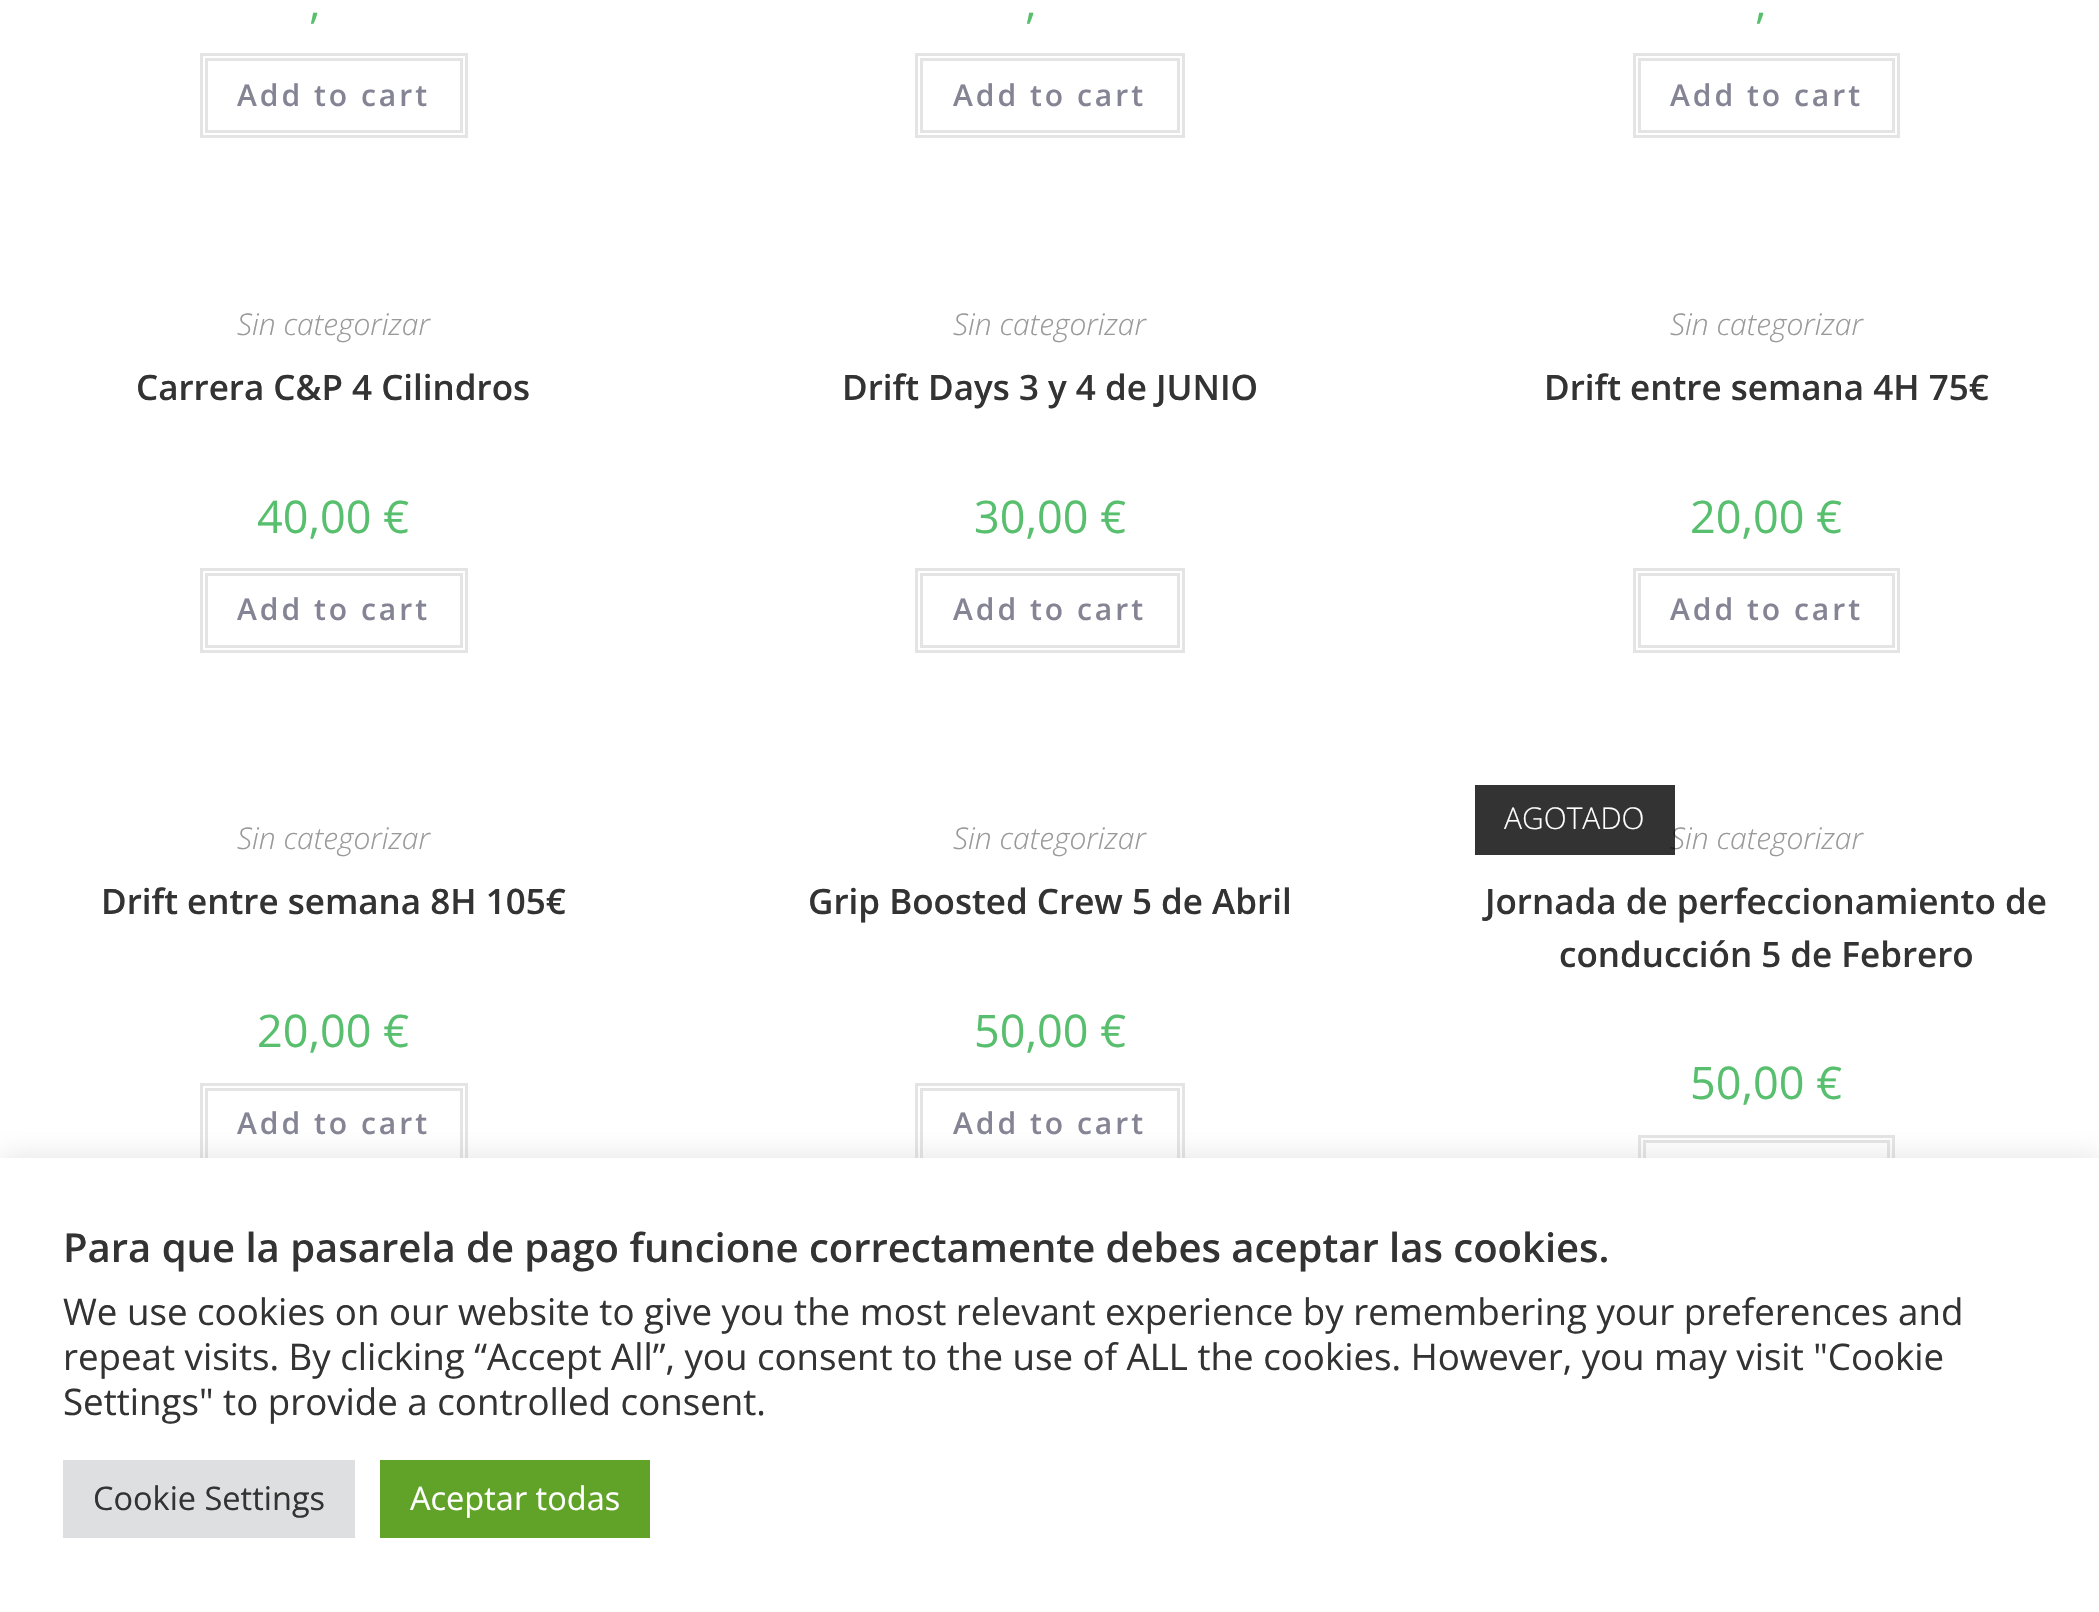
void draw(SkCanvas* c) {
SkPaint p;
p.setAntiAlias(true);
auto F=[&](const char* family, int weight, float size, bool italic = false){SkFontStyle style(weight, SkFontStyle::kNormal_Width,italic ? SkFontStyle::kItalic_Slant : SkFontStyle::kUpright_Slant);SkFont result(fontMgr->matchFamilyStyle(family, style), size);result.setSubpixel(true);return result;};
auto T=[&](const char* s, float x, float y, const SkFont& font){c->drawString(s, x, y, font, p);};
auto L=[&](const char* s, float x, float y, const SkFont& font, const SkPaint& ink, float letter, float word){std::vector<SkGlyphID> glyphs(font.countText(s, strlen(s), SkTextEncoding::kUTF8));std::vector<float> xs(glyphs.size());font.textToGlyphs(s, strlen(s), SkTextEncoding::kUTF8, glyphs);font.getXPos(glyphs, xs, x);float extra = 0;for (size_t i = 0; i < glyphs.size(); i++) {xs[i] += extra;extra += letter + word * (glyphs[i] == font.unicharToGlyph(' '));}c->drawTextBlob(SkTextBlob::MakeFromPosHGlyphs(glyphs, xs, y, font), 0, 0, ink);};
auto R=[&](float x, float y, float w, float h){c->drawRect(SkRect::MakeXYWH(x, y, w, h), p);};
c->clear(0xffffffff);
auto f1 = F("Open Sans",400,45);
p.setColor(0xff57bf6d);
T(",",309,18,f1);
p.setStroke(true);
p.setStrokeWidth(3);
p.setColor(0xffe4e4e4);
c->drawRect(SkRect::MakeXYWH(201.5,54.5,265,82),p);
c->drawRect(SkRect::MakeXYWH(206.5,59.5,255,72),p);
auto f2 = F("Open Sans",600,30);
p.setStroke(false);
p.setColor(0xff848494);
L("Add to cart",237,106,f2,p,3,0);
p.setColor(0xff57bf6d);
T(",",1025,18,f1);
p.setStroke(true);
p.setColor(0xffe4e4e4);
c->drawRect(SkRect::MakeXYWH(916.5,54.5,267,82),p);
c->drawRect(SkRect::MakeXYWH(921.5,59.5,257,72),p);
p.setStroke(false);
p.setColor(0xff848494);
L("Add to cart",953,106,f2,p,3,0);
p.setColor(0xff57bf6d);
T(",",1755,18,f1);
p.setStroke(true);
p.setColor(0xffe4e4e4);
c->drawRect(SkRect::MakeXYWH(1634.5,54.5,264,82),p);
c->drawRect(SkRect::MakeXYWH(1639.5,59.5,254,72),p);
p.setStroke(false);
p.setColor(0xff848494);
L("Add to cart",1670,106,f2,p,3,0);
auto f3 = F("Open Sans",300,30,true);
p.setColor(0xff999999);
T("Sin categorizar",237,335,f3);
auto f4 = F("Open Sans",600,35);
p.setColor(0xff333333);
T("Carrera C&P 4 Cilindros",136,400,f4);
p.setColor(0xff57bf6d);
T("40,00 €",257,533,f1);
p.setStroke(true);
p.setColor(0xffe4e4e4);
c->drawRect(SkRect::MakeXYWH(201.5,569.5,265,82),p);
c->drawRect(SkRect::MakeXYWH(206.5,574.5,255,72),p);
p.setStroke(false);
p.setColor(0xff848494);
L("Add to cart",237,620,f2,p,3,0);
p.setColor(0xff999999);
T("Sin categorizar",953,335,f3);
p.setColor(0xff333333);
T("Drift Days 3 y 4 de JUNIO",842,400,f4);
p.setColor(0xff57bf6d);
T("30,00 €",974,533,f1);
p.setStroke(true);
p.setColor(0xffe4e4e4);
c->drawRect(SkRect::MakeXYWH(916.5,569.5,267,82),p);
c->drawRect(SkRect::MakeXYWH(921.5,574.5,257,72),p);
p.setStroke(false);
p.setColor(0xff848494);
L("Add to cart",953,620,f2,p,3,0);
p.setColor(0xff999999);
T("Sin categorizar",1670,335,f3);
p.setColor(0xff333333);
T("Drift entre semana 4H 75€",1544,400,f4);
p.setColor(0xff57bf6d);
T("20,00 €",1690,533,f1);
p.setStroke(true);
p.setColor(0xffe4e4e4);
c->drawRect(SkRect::MakeXYWH(1634.5,569.5,264,82),p);
c->drawRect(SkRect::MakeXYWH(1639.5,574.5,254,72),p);
p.setStroke(false);
p.setColor(0xff848494);
L("Add to cart",1670,620,f2,p,3,0);
p.setColor(0xff999999);
T("Sin categorizar",237,849,f3);
p.setColor(0xff333333);
T("Drift entre semana 8H 105€",101,914,f4);
p.setColor(0xff57bf6d);
T("20,00 €",257,1047,f1);
p.setStroke(true);
p.setColor(0xffe4e4e4);
c->drawRect(SkRect::MakeXYWH(201.5,1084.5,265,82),p);
c->drawRect(SkRect::MakeXYWH(206.5,1089.5,255,72),p);
p.setStroke(false);
p.setColor(0xff848494);
L("Add to cart",237,1134,f2,p,3,0);
p.setColor(0xff999999);
T("Sin categorizar",953,849,f3);
p.setColor(0xff333333);
T("Grip Boosted Crew 5 de Abril",808,914,f4);
p.setColor(0xff57bf6d);
T("50,00 €",974,1047,f1);
p.setStroke(true);
p.setColor(0xffe4e4e4);
c->drawRect(SkRect::MakeXYWH(916.5,1084.5,267,82),p);
c->drawRect(SkRect::MakeXYWH(921.5,1089.5,257,72),p);
p.setStroke(false);
p.setColor(0xff848494);
L("Add to cart",953,1134,f2,p,3,0);
p.setColor(0xff999999);
T("Sin categorizar",1670,849,f3);
p.setColor(0xcc000000);
R(1475,785,200,70);
auto f5 = F("Open Sans",300,30);
p.setColor(0xffffffff);
T("AGOTADO",1504,829,f5);
p.setColor(0xff333333);
T("Jornada de perfeccionamiento de",1485,914,f4);
T("conducción 5 de Febrero",1559,967,f4);
p.setColor(0xff57bf6d);
T("50,00 €",1690,1099,f1);
p.setStroke(true);
p.setColor(0xffe4e4e4);
c->drawRect(SkRect::MakeXYWH(1639.5,1136.5,254,82),p);
c->drawRect(SkRect::MakeXYWH(1644.5,1141.5,244,72),p);
p.setStroke(false);
p.setColor(0x4dacabab);
p.setMaskFilter(SkMaskFilter::MakeBlur(kNormal_SkBlurStyle, 12.5));
c->drawRect(SkRect::MakeXYWH(0,1155,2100,455),p);
p.setMaskFilter(nullptr);
p.setColor(0xffffffff);
R(0,1158,2099,454);
auto f6 = F("Open Sans",600,40);
p.setColor(0xff333333);
T("Para que la pasarela de pago funcione correctamente debes aceptar las cookies.",63,1262,f6);
auto f7 = F("Open Sans",400,36.67);
T("We use cookies on our website to give you the most relevant experience by remembering your preferences and",63,1325,f7);
T("repeat visits. By clicking “Accept All”, you consent to the use of ALL the cookies. However, you may visit \"Cookie",63,1370,f7);
T("Settings\" to provide a controlled consent.",63,1415,f7);
p.setColor(0xffdedfe0);
R(63,1460,292,78);
auto f8 = F("Open Sans",400,32.5);
p.setColor(0xff333333);
T("Cookie Settings",93,1510,f8);
p.setColor(0xff61a229);
R(380,1460,270,78);
p.setColor(0xffffffff);
T("Aceptar todas",410,1510,f8);
}
